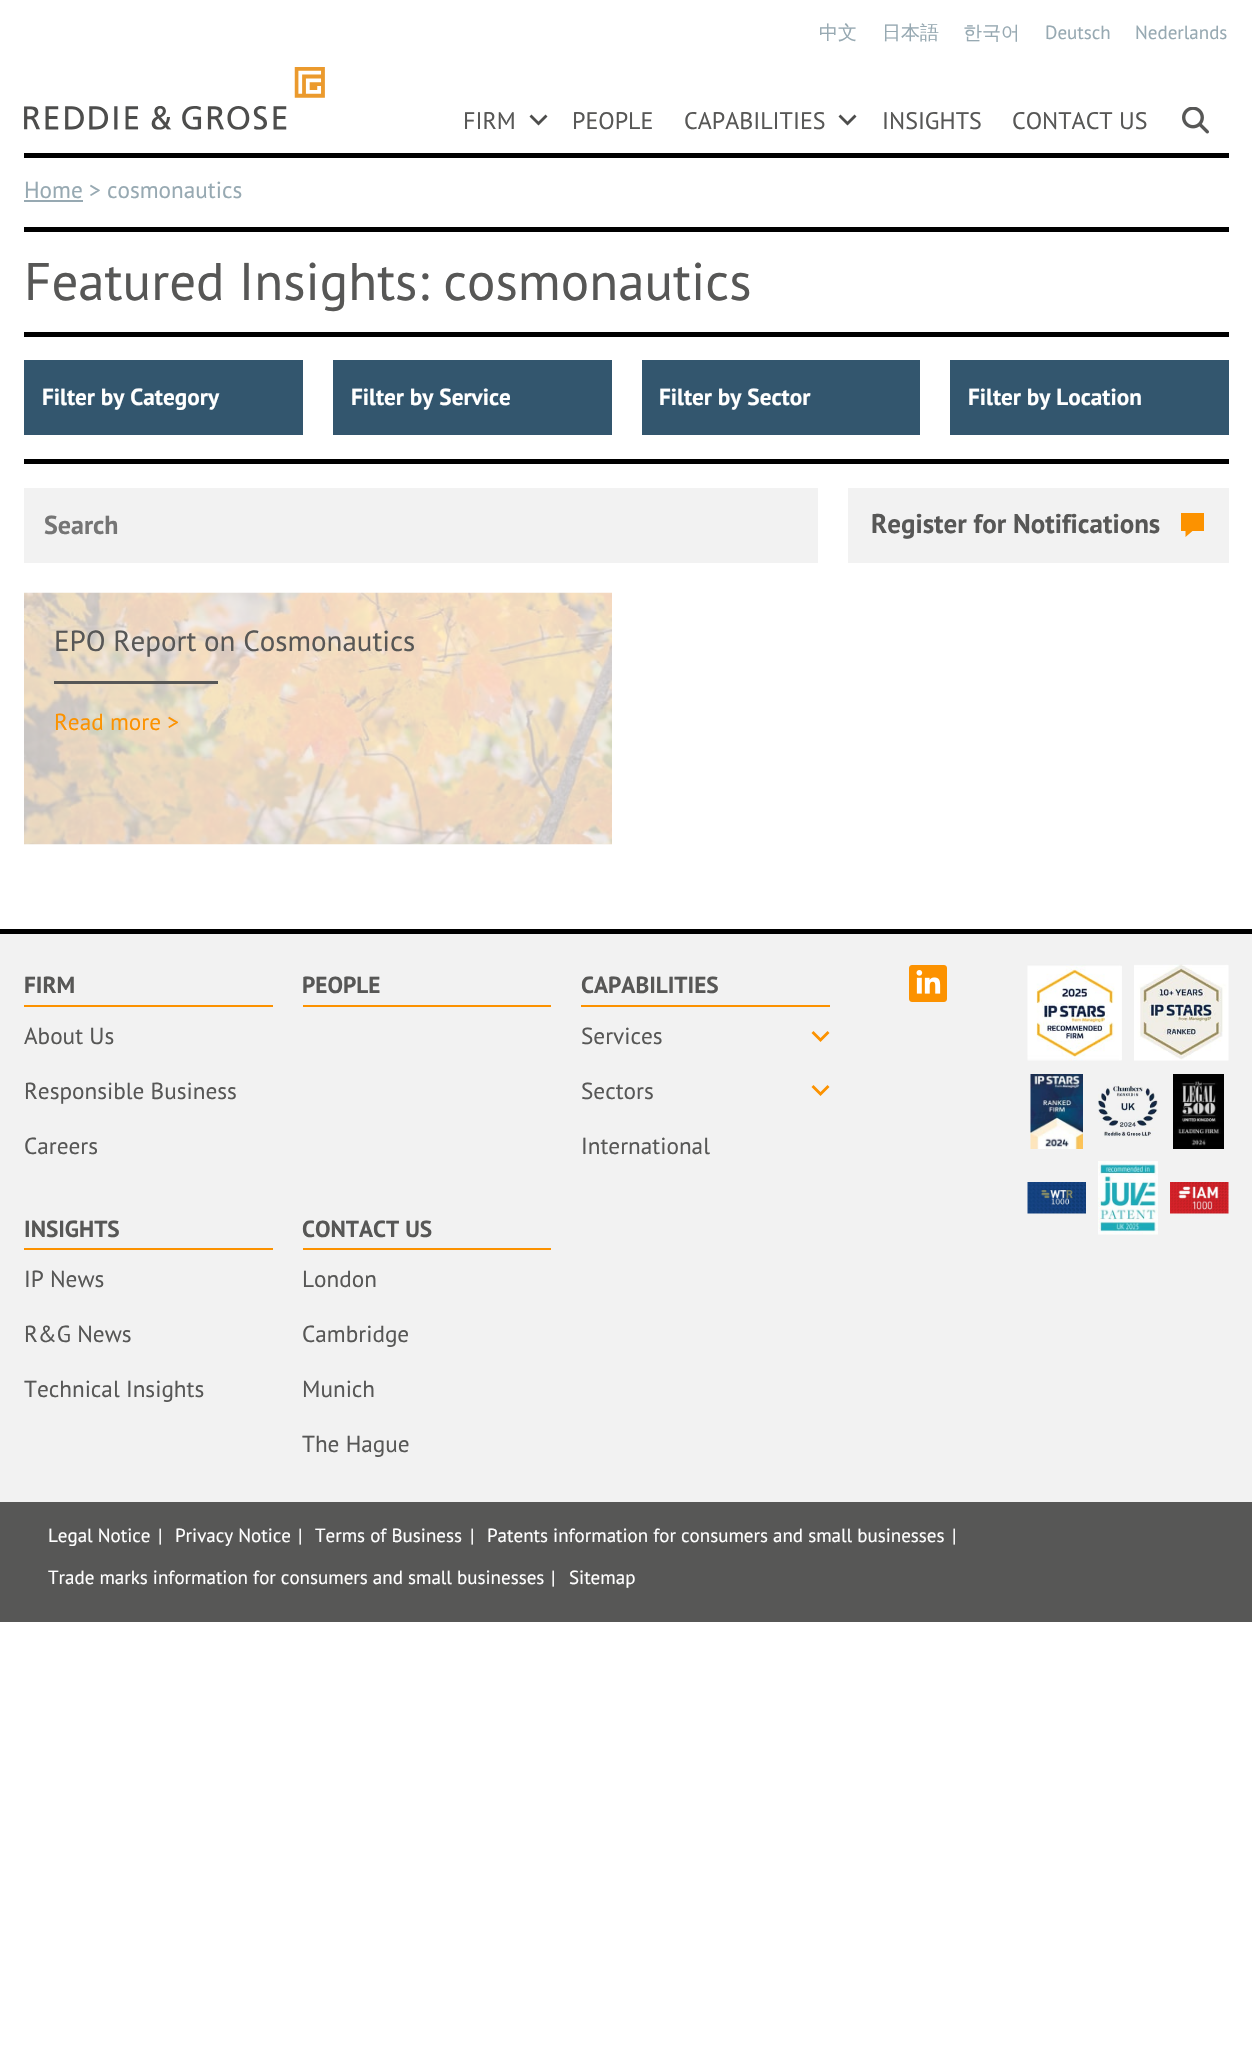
void draw(SkCanvas* c) {
SkPaint p;
p.setAntiAlias(true);
auto F=[&](const char* family, int weight, float size, bool italic = false){SkFontStyle style(weight, SkFontStyle::kNormal_Width,italic ? SkFontStyle::kItalic_Slant : SkFontStyle::kUpright_Slant);SkFont result(fontMgr->matchFamilyStyle(family, style), size);result.setSubpixel(true);return result;};
auto T=[&](const char* s, float x, float y, const SkFont& font){c->drawString(s, x, y, font, p);};
auto R=[&](float x, float y, float w, float h){c->drawRect(SkRect::MakeXYWH(x, y, w, h), p);};
auto I=[&](const char* path, float x, float y, float w, float h){auto image = SkImages::DeferredFromEncodedData(SkData::MakeFromFileName(path));c->drawImageRect(image, SkRect::MakeXYWH(x, y, w, h), SkSamplingOptions());};
auto P=[&](const char* data, bool evenOdd = false){SkPath result = *SkParsePath::FromSVGString(data);if (evenOdd) result.setFillType(SkPathFillType::kEvenOdd);return result;};
c->clear(0xffffffff);
I("1.png",24,67,301,63);
auto f1 = F("WenQuanYi Zen Hei",500,19);
p.setColor(0xff97a9b2);
T("中文",819,39,f1);
T("日本語",882,39,f1);
T("한국어",963,39,f1);
auto f2 = F("PT Sans",400,19);
T("Deutsch",1045,39,f2);
T("Nederlands",1135,39,f2);
auto f3 = F("PT Sans",400,24);
p.setColor(0xff575756);
T("FIRM",463,129,f3);
p.setColor(0xff4d4d4c);
c->drawPath(P("M545.5 114.5l-7 7l-7-7l-2 2l9 9l9-9z"),p);
p.setColor(0xff575756);
T("PEOPLE",572,129,f3);
T("CAPABILITIES",684,129,f3);
p.setColor(0xff4d4d4c);
c->drawPath(P("M854.5 114.5l-7 7l-7-7l-2 2l9 9l9-9z"),p);
p.setColor(0xff575756);
T("INSIGHTS",882,129,f3);
T("CONTACT US",1012,129,f3);
I("2.png",1182,107,27,27);
p.setColor(0xff000000);
R(24,153,1205,5);
R(24,227,1205,5);
auto f4 = F("PT Sans",400,23.25);
p.setColor(0xff97a9b2);
T("Home > cosmonautics",24,198,f4);
R(24,200,59,2);
p.setColor(0xff000000);
R(24,332,1205,5);
auto f5 = F("PT Sans",400,53);
p.setColor(0xff575756);
T("Featured Insights: cosmonautics",24,300,f5);
p.setColor(0xff000000);
R(24,459,1205,5);
p.setColor(0xff33566e);
R(24,360,279,75);
auto f6 = F("PT Sans",700,23.25);
p.setColor(0xffffffff);
T("Filter by Category",42,405,f6);
p.setColor(0xff33566e);
R(333,360,279,75);
p.setColor(0xffffffff);
T("Filter by Service",351,405,f6);
p.setColor(0xff33566e);
R(642,360,278,75);
p.setColor(0xffffffff);
T("Filter by Sector",659,405,f6);
p.setColor(0xff33566e);
R(950,360,279,75);
p.setColor(0xffffffff);
T("Filter by Location",968,405,f6);
p.setColor(0xfff2f2f2);
R(24,488,794,75);
auto f7 = F("PT Sans",700,26);
p.setColor(0xff757575);
T("Search",44,534,f7);
p.setColor(0xfff2f2f2);
R(848,488,381,75);
auto f8 = F("PT Sans",700,27);
p.setColor(0xff575756);
T("Register for Notifications",871,533,f8);
p.setColor(0xfffc9200);
c->drawPath(P("M1181 513h23v18h-11.5l-7 6v-6h-4.5z",true),p);
I("3.png",24,592,588,253);
auto f9 = F("PT Sans",400,29);
p.setColor(0xff575756);
T("EPO Report on Cosmonautics",54,651,f9);
R(54,681,164,3);
p.setColor(0xfffc9200);
T("Read more >",54,730,f4);
p.setColor(0xfff2f2f2);
R(0,934,1252,568);
p.setColor(0xff000000);
R(0,929,1252,5);
p.setColor(0xfffc9200);
R(24,1005,249,2);
p.setColor(0xff575756);
T("FIRM",24,993,f6);
T("About Us",24,1044,f4);
T("Responsible Business",24,1099,f4);
T("Careers",24,1154,f4);
p.setColor(0xfffc9200);
R(303,1005,248,2);
p.setColor(0xff575756);
T("PEOPLE",302,993,f6);
p.setColor(0xfffc9200);
R(581,1005,249,2);
p.setColor(0xff575756);
T("CAPABILITIES",581,993,f6);
T("Services",581,1044,f4);
p.setColor(0xfffc9200);
c->drawPath(P("M827.5 1031l-7 7l-7-7l-2 2l9 9l9-9z"),p);
p.setColor(0xff575756);
T("Sectors",581,1099,f4);
p.setColor(0xfffc9200);
c->drawPath(P("M827.5 1085l-7 7l-7-7l-2 2l9 9l9-9z"),p);
p.setColor(0xff575756);
T("International",581,1154,f4);
p.setColor(0xfffc9200);
R(24,1248,249,2);
p.setColor(0xff575756);
T("INSIGHTS",24,1237,f6);
T("IP News",24,1287,f4);
T("R&G News",24,1342,f4);
T("Technical Insights",24,1397,f4);
p.setColor(0xfffc9200);
R(303,1248,248,2);
p.setColor(0xff575756);
T("CONTACT US",302,1237,f6);
T("London",302,1287,f4);
T("Cambridge",302,1342,f4);
T("Munich",302,1397,f4);
T("The Hague",302,1452,f4);
I("4.png",909,965,38,37);
I("5.png",1027,964,95,97);
I("6.png",1134,964,95,97);
I("7.png",1030,1074,53,75);
I("8.png",1098,1083,60,55);
I("9.png",1173,1074,51,75);
I("10.png",1027,1182,59,32);
I("11.png",1098,1161,60,74);
I("12.png",1170,1182,59,32);
R(0,1502,1252,120);
p.setColor(0xffffffff);
T("Legal Notice",48,1542,f2);
T("|",158,1542,f2);
T("Privacy Notice",175,1542,f2);
T("|",298,1542,f2);
T("Terms of Business",315,1542,f2);
T("|",470,1542,f2);
T("Patents information for consumers and small businesses",487,1542,f2);
T("|",952,1542,f2);
T("Trade marks information for consumers and small businesses",48,1584,f2);
T("|",551,1584,f2);
T("Sitemap",569,1584,f2);
}
